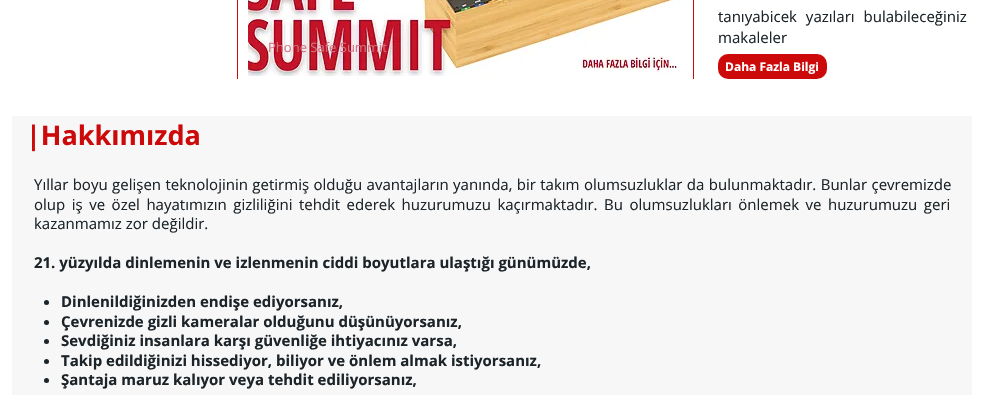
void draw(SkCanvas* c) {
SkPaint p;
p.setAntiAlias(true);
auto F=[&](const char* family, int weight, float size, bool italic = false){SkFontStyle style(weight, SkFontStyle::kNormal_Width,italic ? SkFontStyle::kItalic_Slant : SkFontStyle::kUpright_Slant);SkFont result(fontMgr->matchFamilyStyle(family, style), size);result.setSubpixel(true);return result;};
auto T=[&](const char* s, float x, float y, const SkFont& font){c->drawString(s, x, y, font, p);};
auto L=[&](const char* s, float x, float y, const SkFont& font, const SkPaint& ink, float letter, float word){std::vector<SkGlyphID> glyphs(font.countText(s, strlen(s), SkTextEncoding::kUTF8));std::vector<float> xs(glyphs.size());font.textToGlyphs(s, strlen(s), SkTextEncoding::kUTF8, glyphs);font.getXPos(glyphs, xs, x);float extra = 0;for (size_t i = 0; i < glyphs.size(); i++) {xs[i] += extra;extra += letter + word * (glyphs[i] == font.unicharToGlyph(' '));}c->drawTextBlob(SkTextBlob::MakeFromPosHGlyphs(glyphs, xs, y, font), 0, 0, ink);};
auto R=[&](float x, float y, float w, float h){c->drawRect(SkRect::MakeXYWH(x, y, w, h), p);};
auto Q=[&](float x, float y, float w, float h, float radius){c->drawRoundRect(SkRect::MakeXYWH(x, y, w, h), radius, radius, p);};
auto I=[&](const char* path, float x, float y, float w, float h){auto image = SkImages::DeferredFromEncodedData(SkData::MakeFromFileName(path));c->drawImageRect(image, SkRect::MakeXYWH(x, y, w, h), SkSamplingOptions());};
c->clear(0xffffffff);
p.setColor(0xffcc0a0a);
R(237,0,1,79);
R(693,0,1,79);
auto f1 = F("Open Sans",400,15);
p.setColor(0xff1c2429);
L("tanıyabicek yazıları bulabileceğiniz",718,22,f1,p,0,5);
T("makaleler",718,43,f1);
I("1.png",248,0,432,76);
auto f2 = F("Open Sans",400,13);
p.setColor(0xffd1727e);
T("Phone Safe Summit",268,52,f2);
p.setColor(0xffcc0a0a);
Q(718,54,109,25,10);
auto f3 = F("Open Sans",700,12);
p.setColor(0xffffffff);
T("Daha Fazla Bilgi",725,71,f3);
p.setColor(0xfff7f7f7);
R(12,116,960,279);
auto f4 = F("Open Sans",700,27);
p.setColor(0xffcc0a0a);
T("|Hakkımızda",26,145,f4);
p.setColor(0xff1c2429);
L("Yıllar boyu gelişen teknolojinin getirmiş olduğu avantajların yanında, bir takım olumsuzluklar da bulunmaktadır. Bunlar çevremizde",34,190,f1,p,0,.5);
L("olup iş ve özel hayatımızın gizliliğini tehdit ederek huzurumuzu kaçırmaktadır. Bu olumsuzlukları önlemek ve huzurumuzu geri",34,210,f1,p,0,2.6);
T("kazanmamız zor değildir.",34,229,f1);
auto f5 = F("Open Sans",700,15);
T("21. yüzyılda dinlemenin ve izlenmenin ciddi boyutlara ulaştığı günümüzde,",34,268,f5);
c->drawCircle(46.5,302.5,2.5,p);
T("Dinlenildiğinizden endişe ediyorsanız,",61,307,f5);
c->drawCircle(46.5,322.5,2.5,p);
T("Çevrenizde gizli kameralar olduğunu düşünüyorsanız,",61,327,f5);
c->drawCircle(46.5,341.5,2.5,p);
T("Sevdiğiniz insanlara karşı güvenliğe ihtiyacınız varsa,",61,346,f5);
c->drawCircle(46.5,361.5,2.5,p);
T("Takip edildiğinizi hissediyor, biliyor ve önlem almak istiyorsanız,",61,366,f5);
c->drawCircle(46.5,380.5,2.5,p);
T("Şantaja maruz kalıyor veya tehdit ediliyorsanız,",61,385,f5);
}
